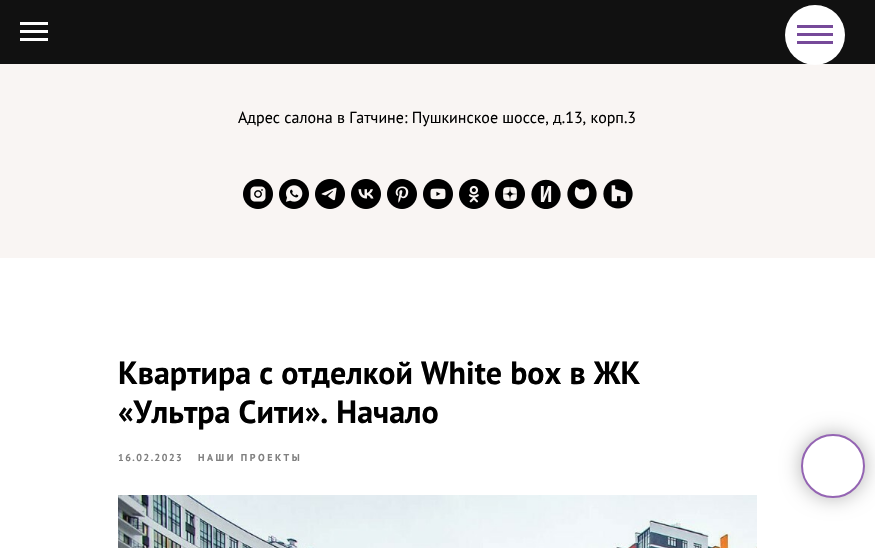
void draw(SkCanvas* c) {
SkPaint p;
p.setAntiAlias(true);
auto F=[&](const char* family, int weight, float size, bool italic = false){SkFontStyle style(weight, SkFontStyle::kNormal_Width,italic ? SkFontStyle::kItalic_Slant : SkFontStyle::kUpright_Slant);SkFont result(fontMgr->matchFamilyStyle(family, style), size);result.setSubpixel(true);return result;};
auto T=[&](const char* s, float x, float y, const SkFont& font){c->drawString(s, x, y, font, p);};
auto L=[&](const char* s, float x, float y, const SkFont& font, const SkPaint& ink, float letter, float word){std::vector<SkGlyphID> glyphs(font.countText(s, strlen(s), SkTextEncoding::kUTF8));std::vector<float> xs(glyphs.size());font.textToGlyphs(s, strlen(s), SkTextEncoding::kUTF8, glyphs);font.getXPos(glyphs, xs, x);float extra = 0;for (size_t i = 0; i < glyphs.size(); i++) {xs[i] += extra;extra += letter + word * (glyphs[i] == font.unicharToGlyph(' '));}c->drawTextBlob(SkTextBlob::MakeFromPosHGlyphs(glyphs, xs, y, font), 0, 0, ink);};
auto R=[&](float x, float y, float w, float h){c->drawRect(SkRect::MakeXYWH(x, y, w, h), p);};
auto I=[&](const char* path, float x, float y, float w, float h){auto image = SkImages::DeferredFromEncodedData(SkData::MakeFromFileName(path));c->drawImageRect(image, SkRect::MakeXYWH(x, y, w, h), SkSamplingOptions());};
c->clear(0xffffffff);
p.setColor(0xff111111);
R(0,0,875,64);
p.setColor(0xffffffff);
R(20,22,28,3);
R(20,30,28,3);
R(20,38,28,3);
p.setColor(0xfff9f5f3);
R(0,64,875,194);
p.setColor(0xffffffff);
c->drawCircle(815,35,30,p);
p.setColor(0xff764999);
R(797,25,36,3);
R(797,33,36,3);
R(797,41,36,3);
auto f1 = F("PT Sans",400,16);
p.setColor(0xff000000);
T("Адрес салона в Гатчине: Пушкинское шоссе, д.13, корп.3",238,123,f1);
I("1.png",243,179,30,30);
I("2.png",279,179,30,30);
I("3.png",315,179,30,30);
I("4.png",351,179,30,30);
I("5.png",387,179,30,30);
I("6.png",423,179,30,30);
I("7.png",459,179,30,30);
I("8.png",495,179,30,30);
I("9.png",531,179,30,30);
I("10.png",567,179,30,30);
I("11.png",603,179,30,30);
p.setColor(0x4d000000);
p.setMaskFilter(SkMaskFilter::MakeBlur(kNormal_SkBlurStyle, 10));
c->drawRoundRect(SkRect::MakeXYWH(801,434,64,64),32,32,p);
p.setMaskFilter(nullptr);
p.setColor(0xffffffff);
c->drawCircle(833,466,31,p);
p.setStroke(true);
p.setStrokeWidth(2);
p.setColor(0xff9464b3);
c->drawCircle(833,466,31,p);
auto f2 = F("PT Sans",700,32);
p.setStroke(false);
p.setColor(0xff000000);
T("Квартира с отделкой White box в ЖК",118,384,f2);
T("«Ультра Сити». Начало",118,423,f2);
auto f3 = F("PT Sans",700,10);
p.setColor(0xff808080);
L("16.02.2023",118,461,f3,p,1.5,0);
L("НАШИ ПРОЕКТЫ",198,461,f3,p,2.5,0);
I("12.png",118,495,639,53);
}
